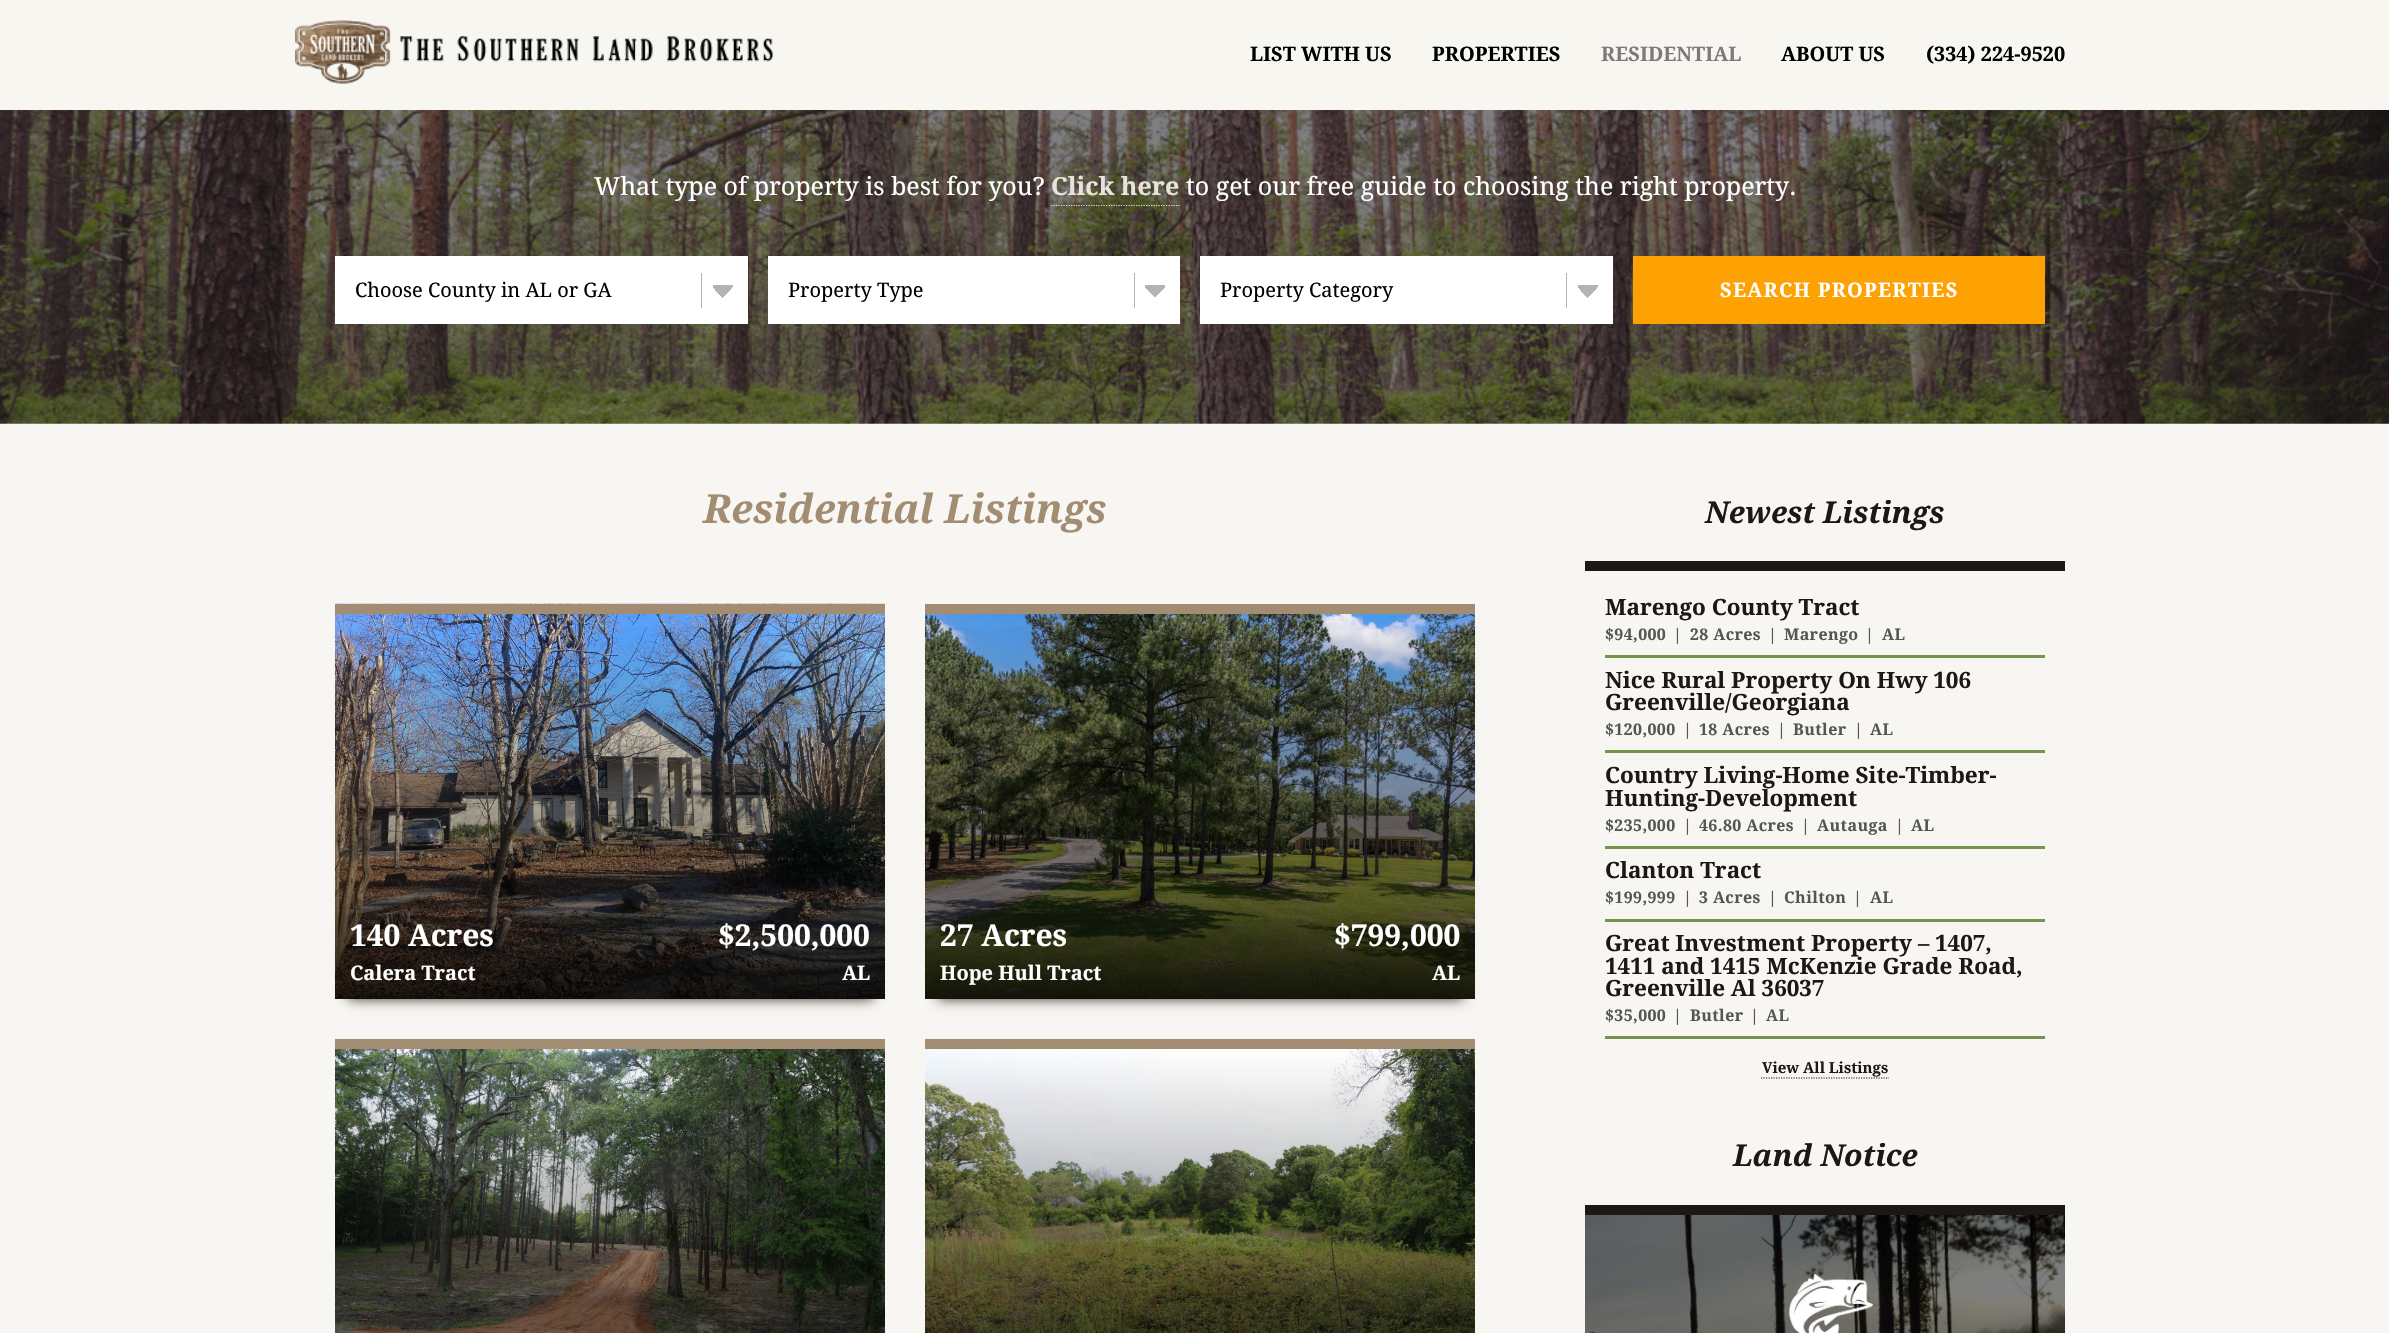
void draw(SkCanvas* c) {
SkPaint p;
p.setAntiAlias(true);
auto F=[&](const char* family, int weight, float size, bool italic = false){SkFontStyle style(weight, SkFontStyle::kNormal_Width,italic ? SkFontStyle::kItalic_Slant : SkFontStyle::kUpright_Slant);SkFont result(fontMgr->matchFamilyStyle(family, style), size);result.setSubpixel(true);return result;};
auto T=[&](const char* s, float x, float y, const SkFont& font){c->drawString(s, x, y, font, p);};
auto L=[&](const char* s, float x, float y, const SkFont& font, const SkPaint& ink, float letter, float word){std::vector<SkGlyphID> glyphs(font.countText(s, strlen(s), SkTextEncoding::kUTF8));std::vector<float> xs(glyphs.size());font.textToGlyphs(s, strlen(s), SkTextEncoding::kUTF8, glyphs);font.getXPos(glyphs, xs, x);float extra = 0;for (size_t i = 0; i < glyphs.size(); i++) {xs[i] += extra;extra += letter + word * (glyphs[i] == font.unicharToGlyph(' '));}c->drawTextBlob(SkTextBlob::MakeFromPosHGlyphs(glyphs, xs, y, font), 0, 0, ink);};
auto R=[&](float x, float y, float w, float h){c->drawRect(SkRect::MakeXYWH(x, y, w, h), p);};
auto I=[&](const char* path, float x, float y, float w, float h){auto image = SkImages::DeferredFromEncodedData(SkData::MakeFromFileName(path));c->drawImageRect(image, SkRect::MakeXYWH(x, y, w, h), SkSamplingOptions());};
auto P=[&](const char* data, bool evenOdd = false){SkPath result = *SkParsePath::FromSVGString(data);if (evenOdd) result.setFillType(SkPathFillType::kEvenOdd);return result;};
c->clear(0xffffffff);
p.setColor(0xfff8f6f1);
R(0,0,2389,110);
I("1.png",295,20,478,64);
auto f1 = F("Droid Serif",700,20);
p.setColor(0xff000000);
T("LIST WITH US",1250,61,f1);
T("PROPERTIES",1432,61,f1);
p.setColor(0xff7c7b79);
T("RESIDENTIAL",1601,61,f1);
p.setColor(0xff000000);
T("ABOUT US",1781,61,f1);
T("(334) 224-9520",1926,61,f1);
I("2.png",0,110,2389,314);
auto f2 = F("Droid Serif",400,25);
p.setColor(0xffffffff);
T("What type of property is best for you?",594,195,f2);
p.setStroke(true);
p.setStrokeWidth(1.2);
p.setColor(0xffe8e2dc);
p.setPathEffect(SkDashPathEffect::Make({{1.25f,1.25f}}, 0));
c->drawPath(P("M1051 205.5h129"),p);
p.setPathEffect(nullptr);
auto f3 = F("Droid Serif",700,25);
p.setStroke(false);
T("Click here",1051,195,f3);
p.setColor(0xffffffff);
T("to get our free guide to choosing the right property.",1186,195,f2);
R(335,256,413,68);
p.setColor(0xffb3b3b3);
R(701,273,1,35);
{
const SkColor colors[] = {0xffb3b3b3,0xffffffff};
const float stops[] = {.49,.5};
const SkPoint ends[] = {{721,287}, {734,299}};
p.setShader(SkGradientShader::MakeLinear(ends, colors, stops, 2, SkTileMode::kClamp));
p.setAlpha(255);
}
R(723,285,10,12);
{
const SkColor colors[] = {0xffffffff,0xffb3b3b3};
const float stops[] = {.51,.51};
const SkPoint ends[] = {{711,299}, {724,287}};
p.setShader(SkGradientShader::MakeLinear(ends, colors, stops, 2, SkTileMode::kClamp));
p.setAlpha(255);
}
R(713,285,10,13);
auto f4 = F("Droid Serif",400,20);
p.setShader(nullptr);
p.setColor(0xff000000);
T("Choose County in AL or GA",355,297,f4);
p.setColor(0xffffffff);
R(768,256,412,68);
p.setColor(0xffb3b3b3);
R(1134,273,1,35);
{
const SkColor colors[] = {0xffb3b3b3,0xffffffff};
const float stops[] = {.49,.5};
const SkPoint ends[] = {{1154,287}, {1166,299}};
p.setShader(SkGradientShader::MakeLinear(ends, colors, stops, 2, SkTileMode::kClamp));
p.setAlpha(255);
}
R(1155,285,10,12);
{
const SkColor colors[] = {0xffffffff,0xffb3b3b3};
const float stops[] = {.51,.51};
const SkPoint ends[] = {{1144,299}, {1156,287}};
p.setShader(SkGradientShader::MakeLinear(ends, colors, stops, 2, SkTileMode::kClamp));
p.setAlpha(255);
}
R(1145,285,10,12);
p.setShader(nullptr);
p.setColor(0xff000000);
T("Property Type",788,297,f4);
p.setColor(0xffffffff);
R(1200,256,413,68);
p.setColor(0xffb3b3b3);
R(1566,273,1,35);
{
const SkColor colors[] = {0xffb3b3b3,0xffffffff};
const float stops[] = {.49,.5};
const SkPoint ends[] = {{1586,287}, {1599,299}};
p.setShader(SkGradientShader::MakeLinear(ends, colors, stops, 2, SkTileMode::kClamp));
p.setAlpha(255);
}
R(1588,285,10,12);
{
const SkColor colors[] = {0xffffffff,0xffb3b3b3};
const float stops[] = {.51,.51};
const SkPoint ends[] = {{1576,299}, {1589,287}};
p.setShader(SkGradientShader::MakeLinear(ends, colors, stops, 2, SkTileMode::kClamp));
p.setAlpha(255);
}
R(1578,285,10,13);
p.setShader(nullptr);
p.setColor(0xff000000);
T("Property Category",1220,297,f4);
p.setColor(0xfffea203);
R(1633,256,412,68);
p.setColor(0xffffffff);
L("SEARCH PROPERTIES",1720,297,f1,p,1.25,0);
p.setColor(0xfff8f6f2);
R(0,424,2389,909);
auto f5 = F("Droid Serif",700,40,true);
p.setColor(0xffa38d72);
T("Residential Listings",703,523,f5);
p.setColor(0xff39312a);
p.setMaskFilter(SkMaskFilter::MakeBlur(kNormal_SkBlurStyle, 6));
c->drawRect(SkRect::MakeXYWH(348,629,525,370),p);
p.setMaskFilter(nullptr);
I("3.png",335,603,550,396);
p.setColor(0xffa38d72);
R(335,604,550,10);
{
const SkColor colors[] = {0x00000000,0xa6000000};
const float stops[] = {0,1};
const SkPoint ends[] = {{610,614}, {610,999}};
p.setShader(SkGradientShader::MakeLinear(ends, colors, stops, 2, SkTileMode::kClamp));
p.setAlpha(255);
}
R(335,627,550,372);
{
const SkColor colors[] = {0x00000000,0xa6000000};
const float stops[] = {0,1};
const SkPoint ends[] = {{610,904}, {610,999}};
p.setShader(SkGradientShader::MakeLinear(ends, colors, stops, 2, SkTileMode::kClamp));
p.setAlpha(255);
}
R(335,908,550,91);
auto f6 = F("Droid Serif",700,30);
p.setShader(nullptr);
p.setColor(0xffffffff);
T("140 Acres",350,946,f6);
T("$2,500,000",718,946,f6);
T("Calera Tract",350,980,f1);
T("AL",842,980,f1);
p.setColor(0xff39312a);
p.setMaskFilter(SkMaskFilter::MakeBlur(kNormal_SkBlurStyle, 6));
c->drawRect(SkRect::MakeXYWH(938,629,525,370),p);
p.setMaskFilter(nullptr);
I("4.png",925,614,550,385);
p.setColor(0xffa38d72);
R(925,604,550,10);
{
const SkColor colors[] = {0x00000000,0xa6000000};
const float stops[] = {0,1};
const SkPoint ends[] = {{1200,614}, {1200,999}};
p.setShader(SkGradientShader::MakeLinear(ends, colors, stops, 2, SkTileMode::kClamp));
p.setAlpha(255);
}
R(925,627,550,372);
{
const SkColor colors[] = {0x00000000,0xa6000000};
const float stops[] = {0,1};
const SkPoint ends[] = {{1200,904}, {1200,999}};
p.setShader(SkGradientShader::MakeLinear(ends, colors, stops, 2, SkTileMode::kClamp));
p.setAlpha(255);
}
R(925,908,550,91);
p.setShader(nullptr);
p.setColor(0xffffffff);
T("27 Acres",940,946,f6);
T("$799,000",1334,946,f6);
T("Hope Hull Tract",940,980,f1);
T("AL",1432,980,f1);
I("5.png",335,1049,550,284);
p.setColor(0xffa38d72);
R(335,1039,550,10);
I("6.png",925,1049,550,284);
R(925,1039,550,10);
auto f7 = F("Droid Serif",700,30,true);
p.setColor(0xff1c1815);
T("Newest Listings",1705,523,f7);
R(1585,561,480,10);
p.setColor(0xff75924f);
R(1605,655,440,3);
auto f8 = F("Droid Serif",700,22.5);
p.setColor(0xff1c1815);
T("Marengo County Tract",1605,615,f8);
auto f9 = F("Droid Serif",700,16);
p.setColor(0xff555555);
L("$94,000",1605,640,f9,p,.4,0);
L("|",1673,640,f9,p,.4,0);
L("28 Acres",1690,640,f9,p,.4,0);
L("|",1768,640,f9,p,.4,0);
L("Marengo",1784,640,f9,p,.4,0);
L("|",1865,640,f9,p,.4,0);
L("AL",1882,640,f9,p,.4,0);
p.setColor(0xff75924f);
R(1605,750,440,3);
p.setColor(0xff1c1815);
T("Nice Rural Property On Hwy 106",1605,688,f8);
T("Greenville/Georgiana",1605,710,f8);
p.setColor(0xff555555);
L("$120,000",1605,735,f9,p,.4,0);
L("|",1683,735,f9,p,.4,0);
L("18 Acres",1699,735,f9,p,.4,0);
L("|",1777,735,f9,p,.4,0);
L("Butler",1793,735,f9,p,.4,0);
L("|",1854,735,f9,p,.4,0);
L("AL",1870,735,f9,p,.4,0);
p.setColor(0xff75924f);
R(1605,846,440,3);
p.setColor(0xff1c1815);
T("Country Living-Home Site-Timber-",1605,783,f8);
T("Hunting-Development",1605,806,f8);
p.setColor(0xff555555);
L("$235,000",1605,831,f9,p,.4,0);
L("|",1683,831,f9,p,.4,0);
L("46.80 Acres",1699,831,f9,p,.4,0);
L("|",1801,831,f9,p,.4,0);
L("Autauga",1817,831,f9,p,.4,0);
L("|",1895,831,f9,p,.4,0);
L("AL",1911,831,f9,p,.4,0);
p.setColor(0xff75924f);
R(1605,919,440,3);
p.setColor(0xff1c1815);
T("Clanton Tract",1605,878,f8);
p.setColor(0xff555555);
L("$199,999",1605,903,f9,p,.4,0);
L("|",1683,903,f9,p,.4,0);
L("3 Acres",1699,903,f9,p,.4,0);
L("|",1768,903,f9,p,.4,0);
L("Chilton",1784,903,f9,p,.4,0);
L("|",1853,903,f9,p,.4,0);
L("AL",1870,903,f9,p,.4,0);
p.setColor(0xff75924f);
R(1605,1036,440,3);
p.setColor(0xff1c1815);
T("Great Investment Property – 1407,",1605,951,f8);
T("1411 and 1415 McKenzie Grade Road,",1605,974,f8);
T("Greenville Al 36037",1605,996,f8);
p.setColor(0xff555555);
L("$35,000",1605,1021,f9,p,.4,0);
L("|",1673,1021,f9,p,.4,0);
L("Butler",1690,1021,f9,p,.4,0);
L("|",1750,1021,f9,p,.4,0);
L("AL",1766,1021,f9,p,.4,0);
auto f10 = F("Droid Serif",700,15);
p.setColor(0xff1c1815);
T("View All Listings",1762,1073,f10);
p.setStroke(true);
p.setPathEffect(SkDashPathEffect::Make({{1.25f,1.25f}}, 0));
c->drawPath(P("M1761 1078h128"),p);
p.setPathEffect(nullptr);
p.setStroke(false);
T("Land Notice",1733,1166,f7);
R(1585,1205,480,10);
I("7.png",1585,1215,480,118);
}
